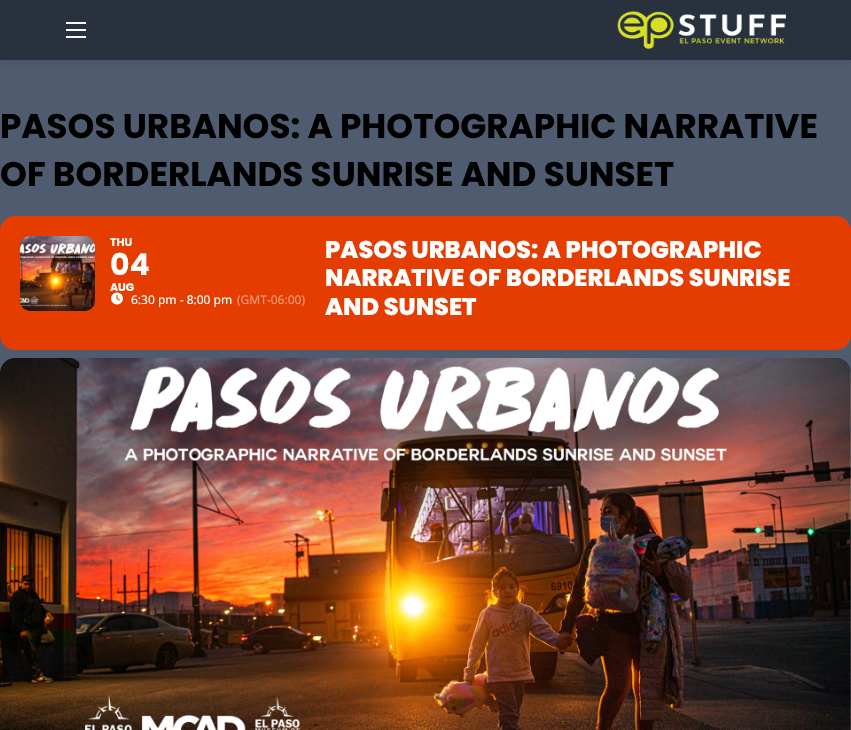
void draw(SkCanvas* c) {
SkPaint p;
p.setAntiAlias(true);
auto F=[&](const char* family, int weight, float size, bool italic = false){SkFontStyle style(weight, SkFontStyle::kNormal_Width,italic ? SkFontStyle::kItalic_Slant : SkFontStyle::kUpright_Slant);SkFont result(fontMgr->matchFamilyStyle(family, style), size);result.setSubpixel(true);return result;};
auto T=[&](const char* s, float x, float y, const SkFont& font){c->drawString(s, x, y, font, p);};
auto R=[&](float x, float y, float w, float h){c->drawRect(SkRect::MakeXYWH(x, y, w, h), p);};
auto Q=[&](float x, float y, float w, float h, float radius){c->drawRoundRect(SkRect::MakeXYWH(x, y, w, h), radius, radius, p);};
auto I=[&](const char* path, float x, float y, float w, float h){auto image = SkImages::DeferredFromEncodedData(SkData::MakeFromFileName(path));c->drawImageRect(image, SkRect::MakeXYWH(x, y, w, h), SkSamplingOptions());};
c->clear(0xff4f5b6e);
p.setColor(0x1a000000);
p.setMaskFilter(SkMaskFilter::MakeBlur(kNormal_SkBlurStyle, 3));
c->drawRect(SkRect::MakeXYWH(0,2,851,60),p);
p.setMaskFilter(nullptr);
p.setColor(0xff29313e);
R(0,0,851,60);
p.setColor(0xfffafafa);
R(66,22,20,2);
R(66,29,20,2);
R(66,36,20,2);
I("1.png",617,11,169,39);
auto f1 = F("Poppins",700,34.2);
p.setColor(0xff000000);
T("PASOS URBANOS: A PHOTOGRAPHIC NARRATIVE",0,138,f1);
T("OF BORDERLANDS SUNRISE AND SUNSET",0,186,f1);
p.setColor(0xffe53d00);
Q(0,216,851,134,15);
I("2.png",20,236,75,75);
auto f2 = F("Poppins",700,11);
p.setColor(0xffffffff);
T("THU",110,246,f2);
auto f3 = F("Poppins",700,30);
T("04",110,275,f3);
T("AUG",110,291,f2);
I("3.png",111,292,12,13);
auto f4 = F("Noto Sans",400,12);
T("6:30 pm - 8:00 pm",131,304,f4);
p.setColor(0xfff29e80);
T("(GMT-06:00)",237,304,f4);
auto f5 = F("Poppins",800,24);
p.setColor(0xffffffff);
T("PASOS URBANOS: A PHOTOGRAPHIC",325,258,f5);
T("NARRATIVE OF BORDERLANDS SUNRISE",325,286,f5);
T("AND SUNSET",325,315,f5);
p.setColor(0xff333333);
Q(0,358,851,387,15);
I("4.png",0,358,851,372);
}
